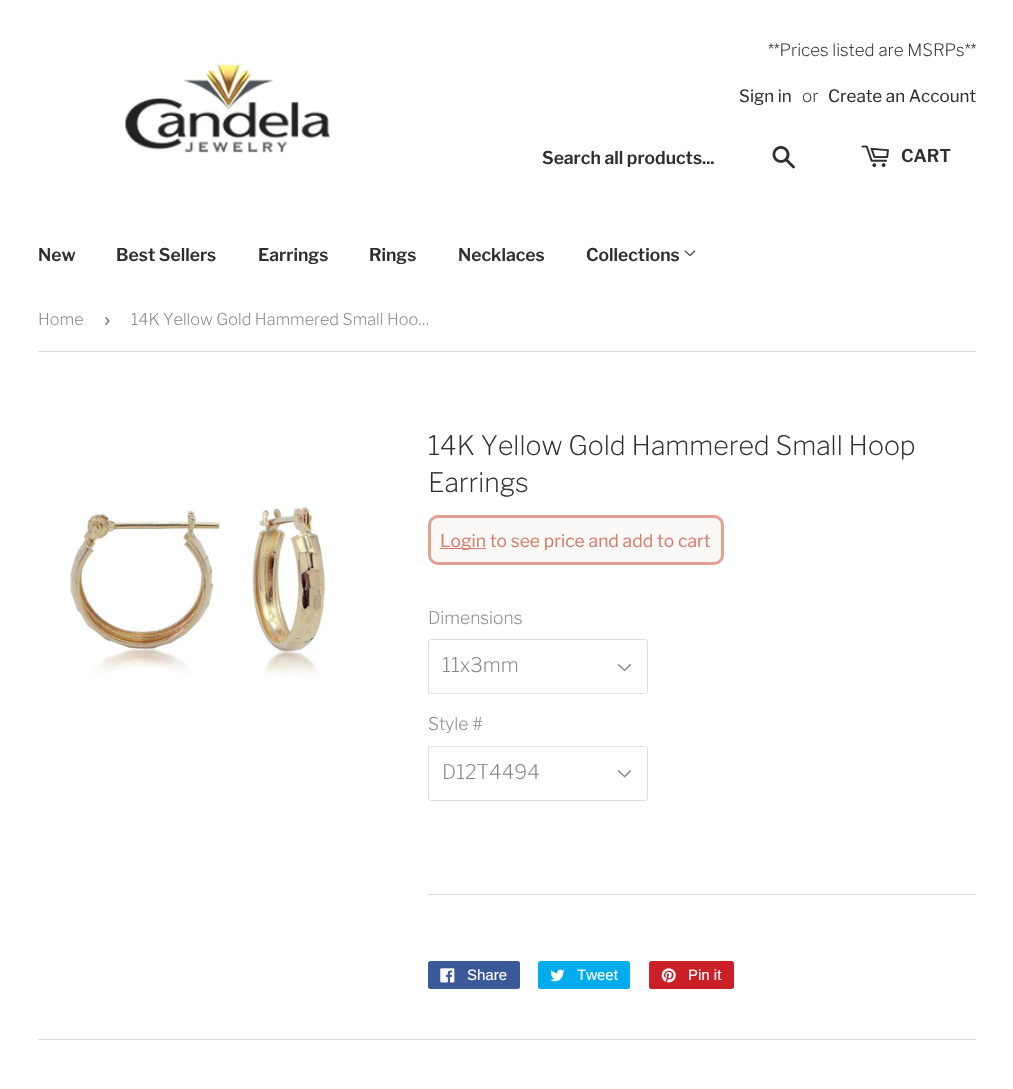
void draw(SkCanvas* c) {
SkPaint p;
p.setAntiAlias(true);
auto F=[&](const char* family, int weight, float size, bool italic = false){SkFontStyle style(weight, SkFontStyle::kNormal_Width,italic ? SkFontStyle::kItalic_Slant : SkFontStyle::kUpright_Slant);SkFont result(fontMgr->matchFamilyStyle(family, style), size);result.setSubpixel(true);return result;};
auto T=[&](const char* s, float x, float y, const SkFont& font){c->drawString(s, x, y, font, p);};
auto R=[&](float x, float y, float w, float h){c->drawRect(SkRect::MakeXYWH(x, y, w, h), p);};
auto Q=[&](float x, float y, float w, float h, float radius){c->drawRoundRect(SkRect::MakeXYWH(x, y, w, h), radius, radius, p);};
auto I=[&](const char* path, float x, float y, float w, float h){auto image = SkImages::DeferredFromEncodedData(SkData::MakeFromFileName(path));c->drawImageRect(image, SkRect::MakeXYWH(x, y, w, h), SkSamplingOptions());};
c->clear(0xffffffff);
I("1.png",125,59,205,95);
auto f1 = F("Libre Franklin",300,17);
p.setColor(0xff2f2f2f);
T("**Prices listed are MSRPs**",768,56,f1);
auto f2 = F("Libre Franklin",400,17);
T("Sign in",739,102,f2);
T("or",802,102,f1);
T("Create an Account",828,102,f2);
auto f3 = F("Libre Franklin",600,17.5);
T("Search all products...",542,164,f3);
I("2.png",772,146,23,23);
I("3.png",861,145,28,23);
T("CART",901,162,f3);
T("New",38,261,f3);
T("Best Sellers",116,261,f3);
T("Earrings",258,261,f3);
T("Rings",369,261,f3);
T("Necklaces",458,261,f3);
T("Collections",586,261,f3);
I("4.png",684,250,12,7);
p.setColor(0xffdedede);
R(38,351,938,1);
auto f4 = F("Libre Franklin",300,16.25);
p.setColor(0xff858585);
T("Home",38,325,f4);
auto f5 = F("Liberation Sans",400,19);
p.setColor(0xff767676);
T("›",104,326,f5);
p.setColor(0xff858585);
T("14K Yellow Gold Hammered Small Hoo…",131,325,f4);
I("5.png",69,506,258,172);
auto f6 = F("Libre Franklin",300,26.7);
p.setColor(0xff2f2f2f);
T("14K Yellow Gold Hammered Small Hoop",428,455,f6);
T("Earrings",428,492,f6);
p.setColor(0xfffaf9f7);
c->drawRoundRect(SkRect::MakeXYWH(429.5,516.5,293,47),8.5,8.5,p);
p.setStroke(true);
p.setStrokeWidth(3);
p.setColor(0xffe2a192);
c->drawRoundRect(SkRect::MakeXYWH(429.5,516.5,293,47),8.5,8.5,p);
p.setStroke(false);
p.setColor(0xffd77e6a);
R(440,548,46,1);
auto f7 = F("Libre Franklin",400,17.5);
T("Login to see price and add to cart",440,547,f7);
auto f8 = F("Libre Franklin",300,17.5);
p.setColor(0xff858585);
T("Dimensions",428,624,f8);
I("6.png",617,663,14,9);
p.setStroke(true);
p.setStrokeWidth(1);
p.setColor(0xffdedede);
c->drawRoundRect(SkRect::MakeXYWH(428.5,639.5,219,54),2,2,p);
auto f9 = F("Libre Franklin",300,20);
p.setStroke(false);
p.setColor(0xff858585);
T("11x3mm",442,672,f9);
T("Style #",428,730,f8);
I("7.png",617,770,14,8);
p.setStroke(true);
p.setColor(0xffdedede);
c->drawRoundRect(SkRect::MakeXYWH(428.5,746.5,219,54),2,2,p);
p.setStroke(false);
p.setColor(0xff858585);
T("D12T4494",442,779,f9);
p.setColor(0xffdedede);
R(428,894,548,1);
p.setColor(0xff3b5998);
Q(428,961,92,28,2.5);
I("8.png",440,968,15,15);
auto f10 = F("Liberation Sans",400,15);
p.setColor(0xffffffff);
T("Share",467,980,f10);
p.setColor(0xff00aced);
Q(538,961,92,28,2.5);
I("9.png",550,969,15,13);
p.setColor(0xffffffff);
T("Tweet",577,980,f10);
p.setColor(0xffcb2027);
Q(649,961,85,28,2.5);
I("10.png",661,968,15,15);
p.setColor(0xffffffff);
T("Pin it",688,980,f10);
p.setColor(0xffdedede);
R(38,1039,938,1);
}
